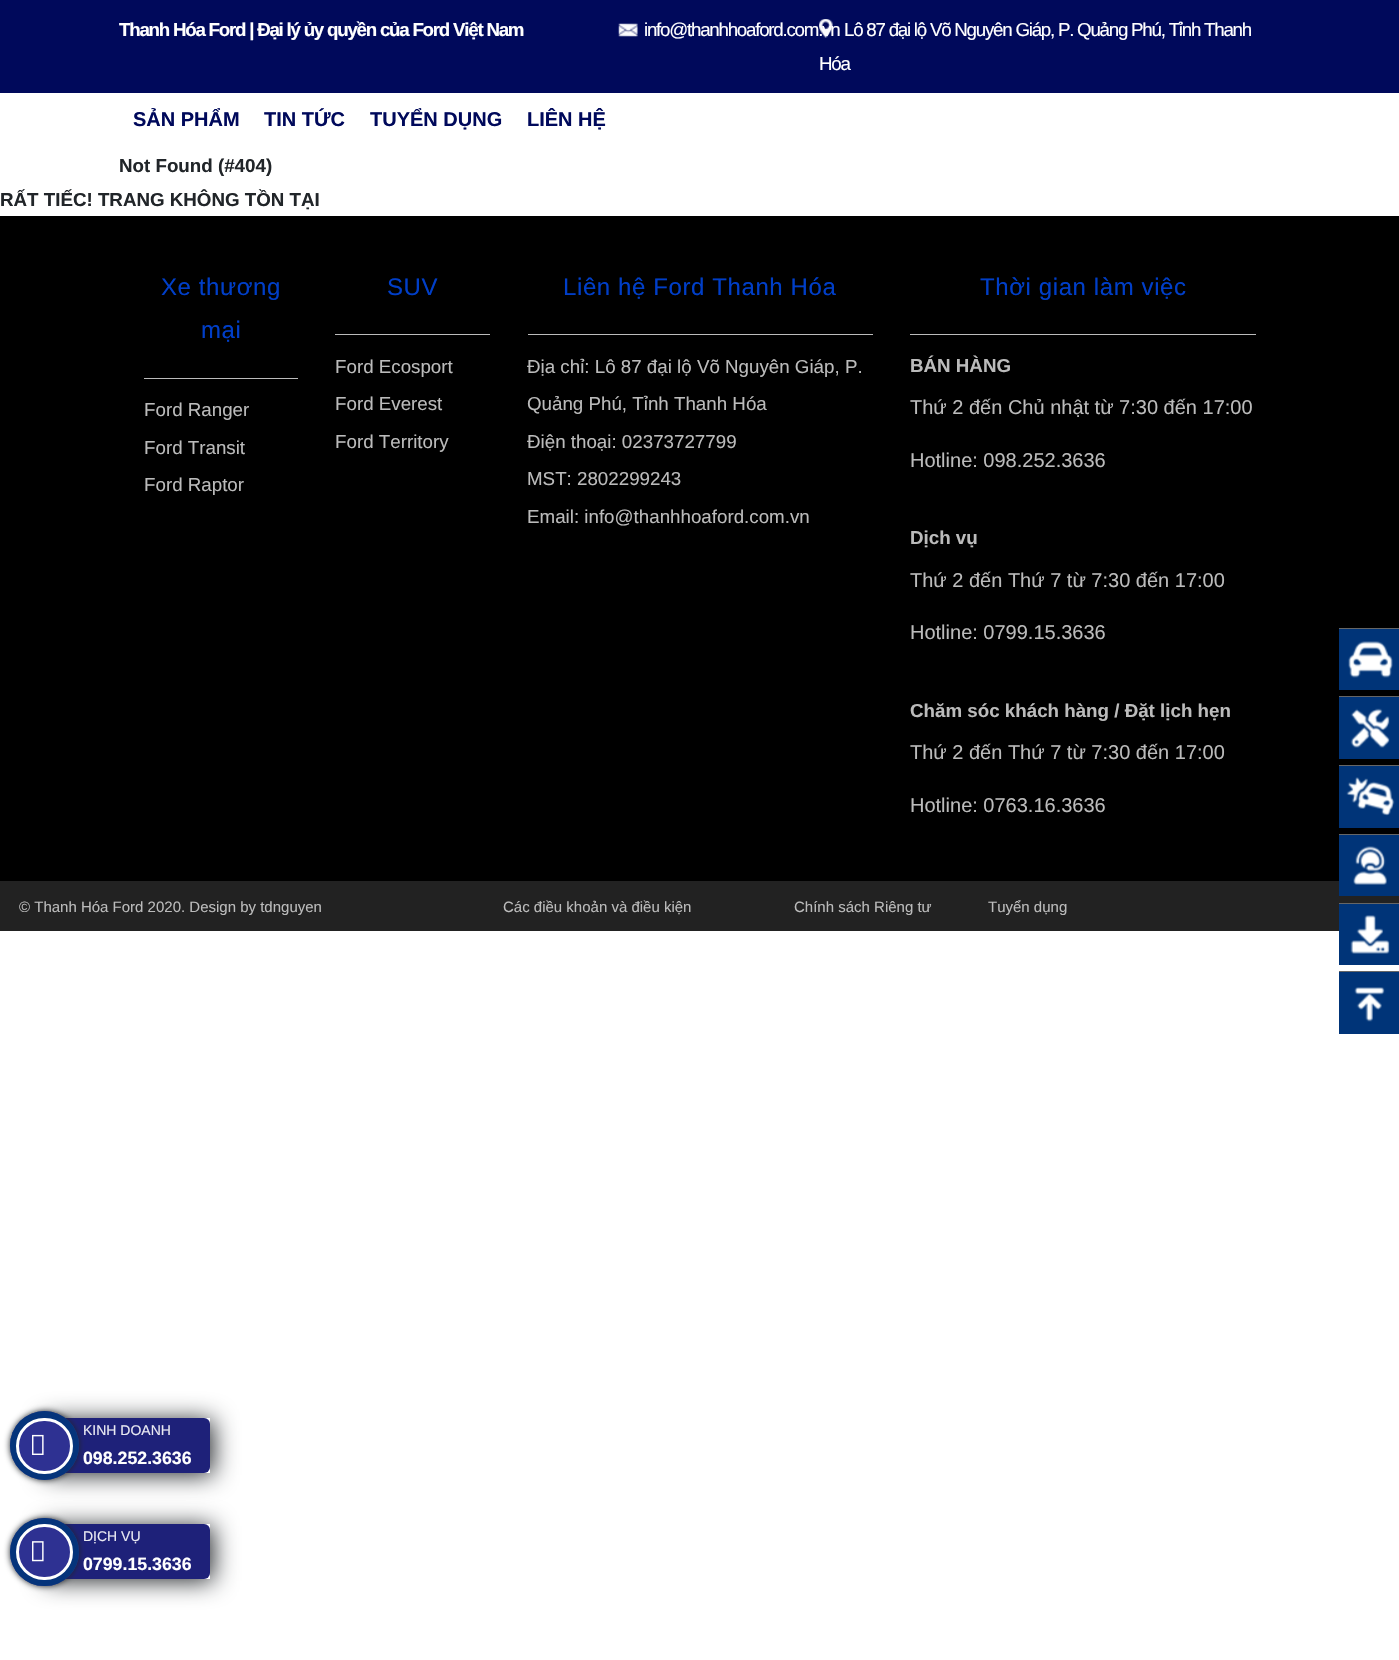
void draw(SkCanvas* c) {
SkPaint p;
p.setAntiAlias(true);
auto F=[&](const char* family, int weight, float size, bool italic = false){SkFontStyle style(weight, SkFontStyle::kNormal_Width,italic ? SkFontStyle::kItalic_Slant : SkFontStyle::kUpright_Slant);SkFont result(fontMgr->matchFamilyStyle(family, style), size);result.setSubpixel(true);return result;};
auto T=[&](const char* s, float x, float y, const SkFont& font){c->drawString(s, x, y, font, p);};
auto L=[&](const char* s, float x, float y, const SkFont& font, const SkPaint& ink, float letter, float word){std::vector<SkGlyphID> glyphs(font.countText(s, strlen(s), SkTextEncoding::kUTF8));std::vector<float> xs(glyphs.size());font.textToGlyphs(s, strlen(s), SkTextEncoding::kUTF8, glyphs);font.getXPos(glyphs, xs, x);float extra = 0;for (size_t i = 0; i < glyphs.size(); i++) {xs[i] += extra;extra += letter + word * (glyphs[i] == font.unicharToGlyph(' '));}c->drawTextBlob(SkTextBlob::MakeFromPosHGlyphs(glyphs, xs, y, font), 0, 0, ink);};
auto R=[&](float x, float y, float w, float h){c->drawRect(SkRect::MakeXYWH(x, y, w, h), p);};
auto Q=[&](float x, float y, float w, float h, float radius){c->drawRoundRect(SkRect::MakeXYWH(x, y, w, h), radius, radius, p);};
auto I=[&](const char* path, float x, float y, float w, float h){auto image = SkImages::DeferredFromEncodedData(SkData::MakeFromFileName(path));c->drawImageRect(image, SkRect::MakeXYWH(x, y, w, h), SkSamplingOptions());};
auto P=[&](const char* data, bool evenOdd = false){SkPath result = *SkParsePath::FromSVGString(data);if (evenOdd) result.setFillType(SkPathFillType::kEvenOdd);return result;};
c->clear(0xffffffff);
p.setColor(0xff00095b);
R(0,0,1399,93);
auto f1 = F("Liberation Sans",700,18.75);
p.setColor(0xffffffff);
L("Thanh Hóa Ford | Đại lý ủy quyền của Ford Việt Nam",119,36,f1,p,-1.25,0);
I("1.png",618,23,20,14);
auto f2 = F("Liberation Sans",400,18.75);
L("info@thanhhoaford.com.vn",644,36,f2,p,-1.25,0);
I("2.png",819,19,14,19);
L("Lô 87 đại lộ Võ Nguyên Giáp, P. Quảng Phú, Tỉnh Thanh",844,36,f2,p,-1.25,0);
L("Hóa",819,70,f2,p,-1.25,0);
auto f3 = F("Liberation Sans",700,20);
p.setColor(0xff00095b);
T("SẢN PHẨM",133,126,f3);
T("TIN TỨC",264,126,f3);
T("TUYỂN DỤNG",370,126,f3);
T("LIÊN HỆ",527,126,f3);
p.setColor(0xff212529);
T("Not Found (#404)",119,172,f1);
T("RẤT TIẾC! TRANG KHÔNG TỒN TẠI",0,206,f1);
p.setColor(0xff000000);
R(0,216,1399,665);
p.setColor(0xffbbbbbb);
R(144,378,154,1);
auto f4 = F("Liberation Sans",400,24);
p.setColor(0xff003ec8);
L("Xe thương",161,295,f4,p,.6,0);
L("mại",201,338,f4,p,.6,0);
p.setColor(0xffbbbbbb);
T("Ford Ranger",144,416,f2);
T("Ford Transit",144,454,f2);
T("Ford Raptor",144,491,f2);
R(335,334,155,1);
p.setColor(0xff003ec8);
L("SUV",387,295,f4,p,.6,0);
p.setColor(0xffbbbbbb);
T("Ford Ecosport",335,373,f2);
T("Ford Everest",335,410,f2);
T("Ford Territory",335,448,f2);
R(528,334,345,1);
p.setColor(0xff003ec8);
L("Liên hệ Ford Thanh Hóa",563,295,f4,p,.6,0);
p.setColor(0xffbbbbbb);
T("Địa chỉ: Lô 87 đại lộ Võ Nguyên Giáp, P.",527,373,f2);
T("Quảng Phú, Tỉnh Thanh Hóa",527,410,f2);
T("Điện thoại: 02373727799",527,448,f2);
T("MST: 2802299243",527,485,f2);
T("Email: info@thanhhoaford.com.vn",527,523,f2);
R(910,334,346,1);
p.setColor(0xff003ec8);
L("Thời gian làm việc",980,295,f4,p,.6,0);
p.setColor(0xffbbbbbb);
T("BÁN HÀNG",910,372,f1);
auto f5 = F("Liberation Sans",400,20);
T("Thứ 2 đến Chủ nhật từ 7:30 đến 17:00",910,414,f5);
T("Hotline: 098.252.3636",910,467,f5);
T("Dịch vụ",910,544,f1);
T("Thứ 2 đến Thứ 7 từ 7:30 đến 17:00",910,587,f5);
T("Hotline: 0799.15.3636",910,639,f5);
T("Chăm sóc khách hàng / Đặt lịch hẹn",910,717,f1);
T("Thứ 2 đến Thứ 7 từ 7:30 đến 17:00",910,759,f5);
T("Hotline: 0763.16.3636",910,812,f5);
p.setColor(0xff003478);
R(1339,629,60,61);
p.setColor(0xff666666);
R(1339,628,60,1);
I("3.png",1348,641,45,37);
p.setColor(0xff003478);
R(1339,697,60,62);
p.setColor(0xff666666);
R(1339,696,60,1);
I("4.png",1350,708,40,40);
p.setColor(0xff003478);
R(1339,766,60,62);
p.setColor(0xff666666);
R(1339,765,60,1);
I("5.png",1346,777,49,39);
p.setColor(0xff222222);
R(0,881,1399,50);
p.setColor(0xff003478);
R(1339,835,60,61);
p.setColor(0xff666666);
R(1339,834,60,1);
I("6.png",1353,846,34,39);
p.setColor(0xff003478);
R(1339,904,60,61);
p.setColor(0xff666666);
R(1339,903,60,1);
I("7.png",1350,915,40,39);
p.setColor(0xff003478);
R(1339,972,60,62);
p.setColor(0xff666666);
R(1339,971,60,1);
I("8.png",1354,987,31,35);
auto f6 = F("Liberation Sans",400,15);
p.setColor(0xffbbbbbb);
T("© Thanh Hóa Ford 2020. Design by tdnguyen",19,912,f6);
T("Các điều khoản và điều kiện",503,912,f6);
T("Chính sách Riêng tư",794,912,f6);
T("Tuyển dụng",988,912,f6);
c->save();
c->clipPath(P("M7 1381h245v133h-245zm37 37h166v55h-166z",true),true);
p.setColor(0xff212529);
p.setMaskFilter(SkMaskFilter::MakeBlur(kNormal_SkBlurStyle, 12.5));
c->drawRect(SkRect::MakeXYWH(46,1420,167,55),p);
p.setMaskFilter(nullptr);
c->restore();
p.setColor(0xff1e2179);
Q(44,1418,166,55,6);
p.setColor(0xff212529);
p.setMaskFilter(SkMaskFilter::MakeBlur(kNormal_SkBlurStyle, 3));
c->drawRoundRect(SkRect::MakeXYWH(10,1411,69,69),34.5,34.5,p);
p.setMaskFilter(nullptr);
p.setColor(0xff2e3192);
c->drawCircle(44.5,1445.5,34.5,p);
p.setColor(0xe6003478);
c->drawCircle(44.5,1445.5,34.5,p);
p.setColor(0xff2e3192);
c->drawRoundRect(SkRect::MakeXYWH(17.5,1419.5,54,53),26.5,26.5,p);
p.setStroke(true);
p.setStrokeWidth(3);
p.setColor(0xffffffff);
c->drawRoundRect(SkRect::MakeXYWH(17.5,1419.5,54,53),26.5,26.5,p);
I("9.png",32,1434,12,21);
auto f7 = F("Liberation Sans",400,14);
p.setStroke(false);
p.setColor(0xffe9e9f2);
T("KINH DOANH",83,1435,f7);
auto f8 = F("Liberation Sans",700,17.75);
p.setColor(0xffffffff);
T("098.252.3636",83,1464,f8);
c->save();
c->clipPath(P("M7 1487h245v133h-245zm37 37h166v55h-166z",true),true);
p.setColor(0xff212529);
p.setMaskFilter(SkMaskFilter::MakeBlur(kNormal_SkBlurStyle, 12.5));
c->drawRect(SkRect::MakeXYWH(46,1526,167,55),p);
p.setMaskFilter(nullptr);
c->restore();
p.setColor(0xff1e2179);
Q(44,1524,166,55,6);
p.setColor(0xff212529);
p.setMaskFilter(SkMaskFilter::MakeBlur(kNormal_SkBlurStyle, 3));
c->drawRoundRect(SkRect::MakeXYWH(10,1518,69,68),34,34,p);
p.setMaskFilter(nullptr);
p.setColor(0xff2e3192);
Q(10,1518,69,68,34);
p.setColor(0xe6003478);
Q(10,1518,69,68,34);
p.setColor(0xff2e3192);
c->drawRoundRect(SkRect::MakeXYWH(17.5,1525.5,54,53),26.5,26.5,p);
p.setStroke(true);
p.setColor(0xffffffff);
c->drawRoundRect(SkRect::MakeXYWH(17.5,1525.5,54,53),26.5,26.5,p);
I("10.png",32,1541,12,21);
p.setStroke(false);
p.setColor(0xffe9e9f2);
T("DỊCH VỤ",83,1541,f7);
p.setColor(0xffffffff);
T("0799.15.3636",83,1570,f8);
}
